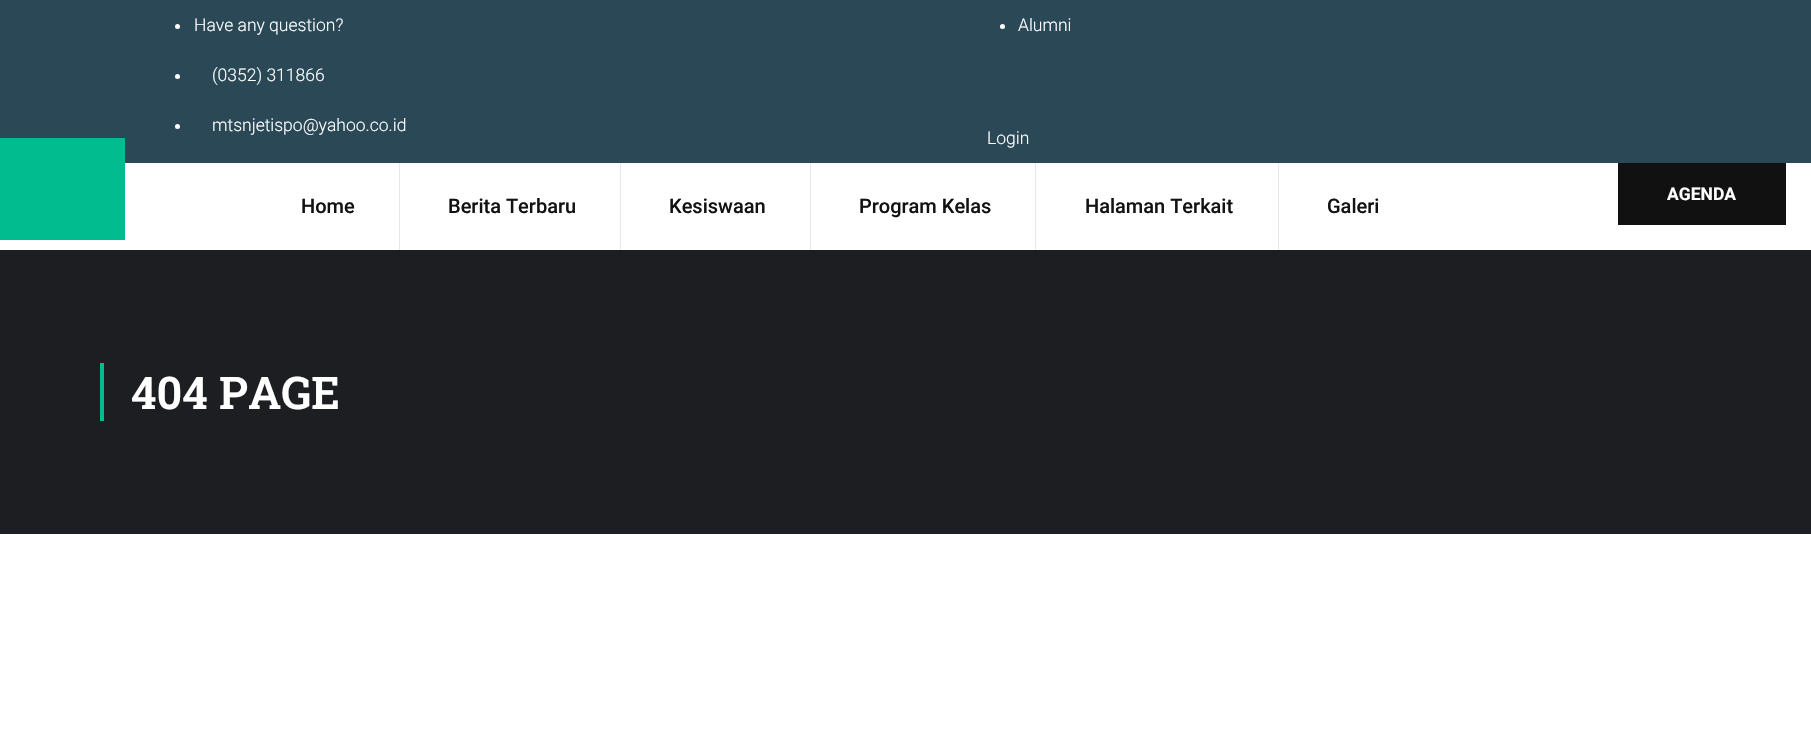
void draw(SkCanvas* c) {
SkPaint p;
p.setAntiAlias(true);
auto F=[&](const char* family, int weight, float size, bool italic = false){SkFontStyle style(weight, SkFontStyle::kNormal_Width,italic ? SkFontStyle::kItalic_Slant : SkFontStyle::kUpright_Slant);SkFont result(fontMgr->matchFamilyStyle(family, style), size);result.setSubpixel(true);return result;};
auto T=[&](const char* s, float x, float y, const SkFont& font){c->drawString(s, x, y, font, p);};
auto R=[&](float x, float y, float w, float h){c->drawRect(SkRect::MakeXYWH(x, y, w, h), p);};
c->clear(0xffffffff);
p.setColor(0xff2a4856);
R(0,0,1811,163);
p.setColor(0xffffffff);
c->drawCircle(177.5,26.5,2.5,p);
auto f1 = F("Roboto",300,17.5);
T("Have any question?",194,31,f1);
c->drawCircle(177.5,76.5,2.5,p);
T("(0352) 311866",212,81,f1);
c->drawCircle(177.5,126.5,2.5,p);
T("mtsnjetispo@yahoo.co.id",212,131,f1);
c->drawCircle(1002.5,26.5,2.5,p);
T("Alumni",1018,31,f1);
T("Login",987,144,f1);
p.setColor(0xff00bc8f);
R(0,138,125,102);
p.setColor(0xff111111);
R(1618,163,168,62);
auto f2 = F("Roboto",700,17.5);
p.setColor(0xffffffff);
T("AGENDA",1667,200,f2);
p.setColor(0xffe7e7e7);
R(399,163,1,87);
auto f3 = F("Roboto",500,20);
p.setColor(0xff121212);
T("Home",301,213,f3);
p.setColor(0xffe7e7e7);
R(620,163,1,87);
p.setColor(0xff121212);
T("Berita Terbaru",448,213,f3);
p.setColor(0xffe7e7e7);
R(810,163,1,87);
p.setColor(0xff121212);
T("Kesiswaan",669,213,f3);
p.setColor(0xffe7e7e7);
R(1035,163,1,87);
p.setColor(0xff121212);
T("Program Kelas",859,213,f3);
p.setColor(0xffe7e7e7);
R(1278,163,1,87);
p.setColor(0xff121212);
T("Halaman Terkait",1085,213,f3);
T("Galeri",1327,213,f3);
p.setColor(0xff1c1e22);
R(0,250,1811,284);
p.setColor(0xff00bc8f);
R(100,363,4,58);
auto f4 = F("Roboto Slab",600,45);
p.setColor(0xffffffff);
T("404 PAGE",131,409,f4);
}
